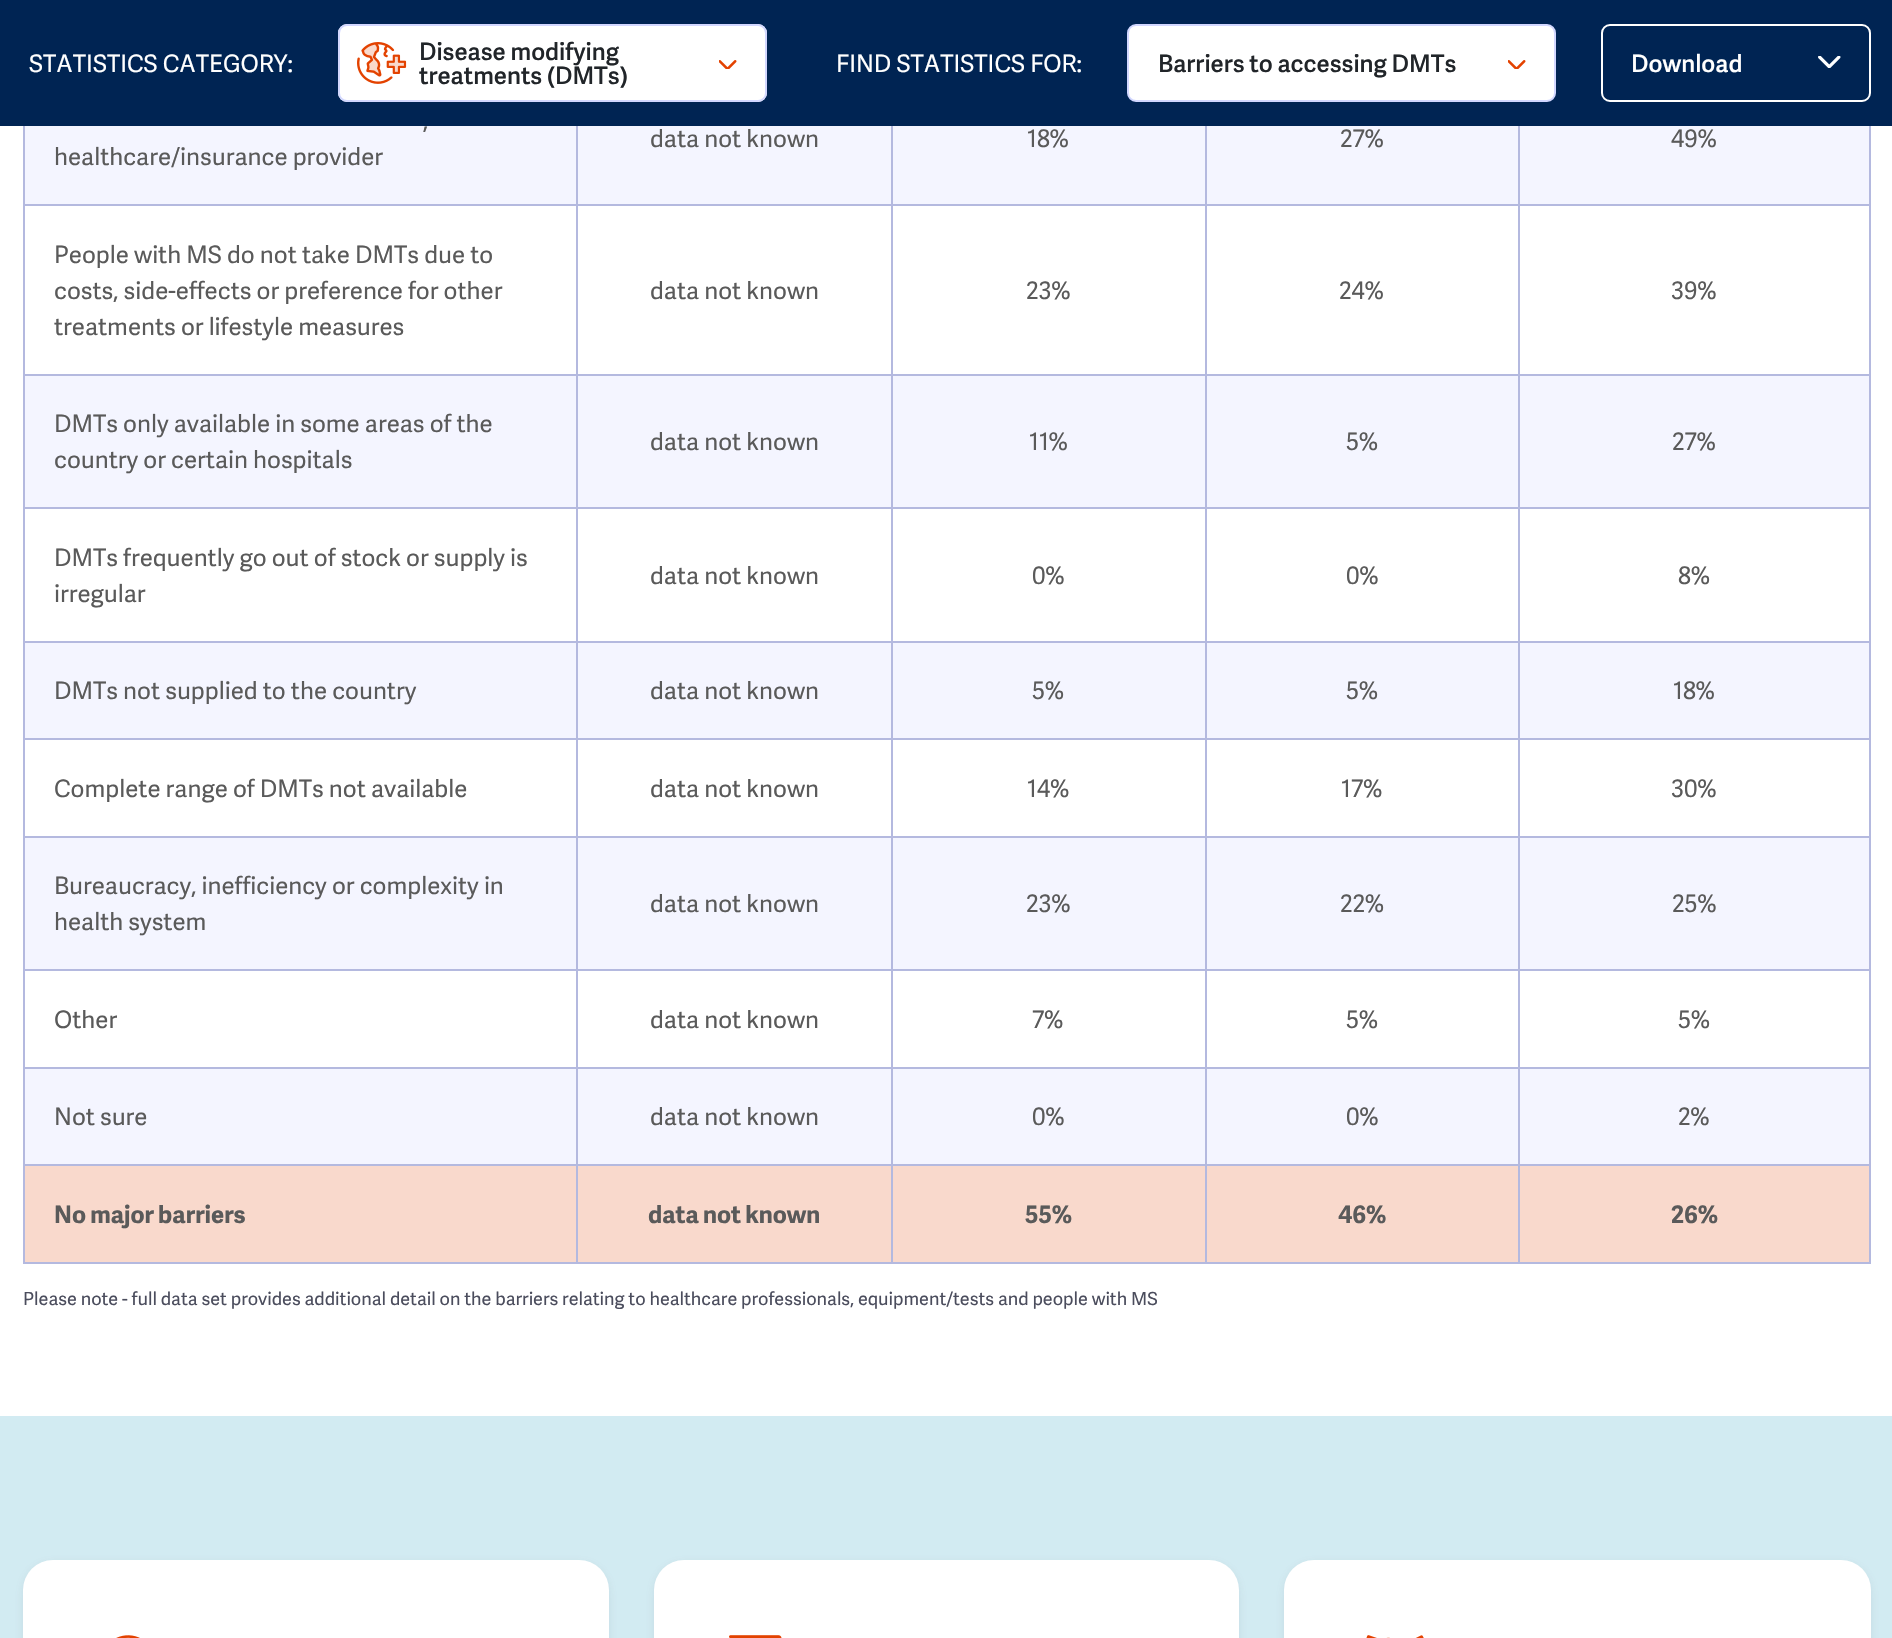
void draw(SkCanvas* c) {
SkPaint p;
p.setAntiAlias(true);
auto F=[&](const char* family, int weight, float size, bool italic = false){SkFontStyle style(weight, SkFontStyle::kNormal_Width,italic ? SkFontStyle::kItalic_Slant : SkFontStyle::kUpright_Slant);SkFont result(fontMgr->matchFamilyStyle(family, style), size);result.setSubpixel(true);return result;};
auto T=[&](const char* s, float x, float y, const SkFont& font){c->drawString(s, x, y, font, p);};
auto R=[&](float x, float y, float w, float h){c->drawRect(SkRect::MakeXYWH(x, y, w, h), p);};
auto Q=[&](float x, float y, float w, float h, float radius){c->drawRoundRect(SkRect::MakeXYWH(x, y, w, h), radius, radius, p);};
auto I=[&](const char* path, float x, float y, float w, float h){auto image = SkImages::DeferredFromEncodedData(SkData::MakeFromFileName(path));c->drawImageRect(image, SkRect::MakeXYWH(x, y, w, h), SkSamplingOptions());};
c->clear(0xffffffff);
p.setColor(0xff002453);
R(0,0,1892,126);
auto f1 = F("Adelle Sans",400,24);
p.setColor(0xffffffff);
T("STATISTICS CATEGORY:",29,72,f1);
Q(338,24,429,78,9);
I("1.png",357,42,50,42);
p.setStroke(true);
p.setStrokeWidth(2);
p.setColor(0xffd2d7ff);
c->drawRoundRect(SkRect::MakeXYWH(339,25,427,76),8,8,p);
auto f2 = F("Adelle Sans",600,24);
p.setStroke(false);
p.setColor(0xff212529);
T("Disease modifying",419,60,f2);
I("2.png",719,60,18,9);
T("treatments (DMTs)",419,84,f2);
p.setColor(0xffffffff);
T("FIND STATISTICS FOR:",836,72,f1);
c->drawRoundRect(SkRect::MakeXYWH(1128,25,427,76),8,8,p);
p.setStroke(true);
p.setColor(0xffd2d7ff);
c->drawRoundRect(SkRect::MakeXYWH(1128,25,427,76),8,8,p);
p.setStroke(false);
p.setColor(0xff212529);
T("Barriers to accessing DMTs",1158,72,f2);
I("2.png",1508,60,18,9);
p.setStroke(true);
p.setColor(0xffffffff);
c->drawRoundRect(SkRect::MakeXYWH(1602,25,268,76),8,8,p);
p.setStroke(false);
T("Download",1631,72,f2);
I("3.png",1818,56,23,12);
p.setColor(0xffb4b9df);
R(1869,126,2,1137);
R(23,1262,1848,2);
R(23,126,2,1137);
p.setColor(0xfff4f5ff);
R(25,126,1844,78);
p.setColor(0xff5a5a5a);
T(",",423,129,f1);
T("healthcare/insurance provider",54,165,f1);
p.setColor(0xffb4b9df);
R(1518,204,353,2);
R(1518,374,353,2);
p.setColor(0xfff4f5ff);
R(25,376,1844,131);
p.setColor(0xffb4b9df);
R(1518,507,353,2);
R(1518,641,353,2);
p.setColor(0xfff4f5ff);
R(25,643,1844,95);
p.setColor(0xffb4b9df);
R(1518,738,353,2);
R(1518,836,353,2);
p.setColor(0xfff4f5ff);
R(25,838,1844,131);
p.setColor(0xffb4b9df);
R(1518,969,353,2);
R(1518,1067,353,2);
p.setColor(0xfff4f5ff);
R(25,1069,1844,95);
p.setColor(0xffb4b9df);
R(1518,1164,353,2);
p.setColor(0xfff9d9cc);
R(25,1166,1844,96);
p.setColor(0xffb4b9df);
R(1518,1164,2,99);
R(1205,1164,315,2);
R(1518,1067,2,99);
R(1205,1067,315,2);
R(1518,969,2,99);
R(1205,969,315,2);
R(1518,836,2,135);
R(1205,836,315,2);
R(1518,738,2,99);
R(1205,738,315,2);
R(1518,641,2,99);
R(1205,641,315,2);
R(1518,507,2,135);
R(1205,507,315,2);
R(1518,374,2,135);
R(1205,374,315,2);
R(1518,204,2,171);
R(1205,204,315,2);
R(1205,1164,2,99);
R(891,1164,315,2);
R(1205,1067,2,99);
R(891,1067,315,2);
R(1205,969,2,99);
R(891,969,315,2);
R(1205,836,2,135);
R(891,836,315,2);
R(1205,738,2,99);
R(891,738,315,2);
R(1205,641,2,99);
R(891,641,315,2);
R(1205,507,2,135);
R(891,507,315,2);
R(1205,374,2,135);
R(891,374,315,2);
R(1205,204,2,171);
R(891,204,315,2);
R(891,1164,2,99);
R(576,1164,317,2);
R(891,1067,2,99);
R(576,1067,317,2);
R(891,969,2,99);
R(576,969,317,2);
R(891,836,2,135);
R(576,836,317,2);
R(891,738,2,99);
R(576,738,317,2);
R(891,641,2,99);
R(576,641,317,2);
R(891,507,2,135);
R(576,507,317,2);
R(891,374,2,135);
R(576,374,317,2);
R(891,204,2,171);
R(576,204,317,2);
R(576,1164,2,99);
R(23,1164,555,2);
R(576,1067,2,99);
R(23,1067,555,2);
R(576,969,2,99);
R(23,969,555,2);
R(576,836,2,135);
R(23,836,555,2);
R(576,738,2,99);
R(23,738,555,2);
R(576,641,2,99);
R(23,641,555,2);
R(576,507,2,135);
R(23,507,555,2);
R(576,374,2,135);
R(23,374,555,2);
R(576,204,2,171);
R(23,204,555,2);
R(576,126,2,80);
p.setColor(0xff5a5a5a);
T("data not known",650,147,f1);
p.setColor(0xffb4b9df);
R(891,126,2,80);
p.setColor(0xff5a5a5a);
T("18%",1027,147,f1);
p.setColor(0xffb4b9df);
R(1205,126,2,80);
p.setColor(0xff5a5a5a);
T("27%",1340,147,f1);
p.setColor(0xffb4b9df);
R(1518,126,2,80);
p.setColor(0xff5a5a5a);
T("49%",1671,147,f1);
T("People with MS do not take DMTs due to",54,263,f1);
T("costs, side-effects or preference for other",54,299,f1);
T("treatments or lifestyle measures",54,335,f1);
T("data not known",650,299,f1);
T("23%",1026,299,f1);
T("24%",1339,299,f1);
T("39%",1671,299,f1);
T("DMTs only available in some areas of the",54,432,f1);
T("country or certain hospitals",54,468,f1);
T("data not known",650,450,f1);
T("11%",1029,450,f1);
T("5%",1346,450,f1);
T("27%",1672,450,f1);
T("DMTs frequently go out of stock or supply is",54,566,f1);
T("irregular",54,602,f1);
T("data not known",650,584,f1);
T("0%",1032,584,f1);
T("0%",1346,584,f1);
T("8%",1678,584,f1);
T("DMTs not supplied to the country",54,699,f1);
T("data not known",650,699,f1);
T("5%",1032,699,f1);
T("5%",1346,699,f1);
T("18%",1673,699,f1);
T("Complete range of DMTs not available",54,797,f1);
T("data not known",650,797,f1);
T("14%",1027,797,f1);
T("17%",1341,797,f1);
T("30%",1671,797,f1);
T("Bureaucracy, inefficiency or complexity in",54,894,f1);
T("health system",54,930,f1);
T("data not known",650,912,f1);
T("23%",1026,912,f1);
T("22%",1340,912,f1);
T("25%",1672,912,f1);
T("Other",54,1028,f1);
T("data not known",650,1028,f1);
T("7%",1032,1028,f1);
T("5%",1346,1028,f1);
T("5%",1678,1028,f1);
T("Not sure",54,1125,f1);
T("data not known",650,1125,f1);
T("0%",1032,1125,f1);
T("0%",1346,1125,f1);
T("2%",1678,1125,f1);
auto f3 = F("Adelle Sans",700,24);
T("No major barriers",54,1223,f3);
T("data not known",648,1223,f3);
T("55%",1025,1223,f3);
T("46%",1338,1223,f3);
T("26%",1671,1223,f3);
auto f4 = F("Adelle Sans",400,18);
p.setColor(0xff4b4d5d);
T("Please note - full data set provides additional detail on the barriers relating to healthcare professionals, equipment/tests and people with MS",23,1305,f4);
p.setColor(0xffd2ebf2);
R(0,1416,1892,222);
p.setColor(0x24707887);
p.setMaskFilter(SkMaskFilter::MakeBlur(kNormal_SkBlurStyle, 4.5));
c->drawRoundRect(SkRect::MakeXYWH(23,1563,586,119),30,30,p);
p.setMaskFilter(nullptr);
p.setColor(0xffffffff);
Q(23,1560,586,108,30);
I("4.png",116,1635,24,3);
p.setColor(0x24707887);
p.setMaskFilter(SkMaskFilter::MakeBlur(kNormal_SkBlurStyle, 4.5));
c->drawRoundRect(SkRect::MakeXYWH(654,1563,585,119),30,30,p);
p.setMaskFilter(nullptr);
p.setColor(0xffffffff);
Q(654,1560,585,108,30);
I("5.png",729,1635,53,3);
p.setColor(0x24707887);
p.setMaskFilter(SkMaskFilter::MakeBlur(kNormal_SkBlurStyle, 4.5));
c->drawRoundRect(SkRect::MakeXYWH(1284,1563,587,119),30,30,p);
p.setMaskFilter(nullptr);
p.setColor(0xffffffff);
Q(1284,1560,587,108,30);
I("6.png",1366,1635,58,3);
}
